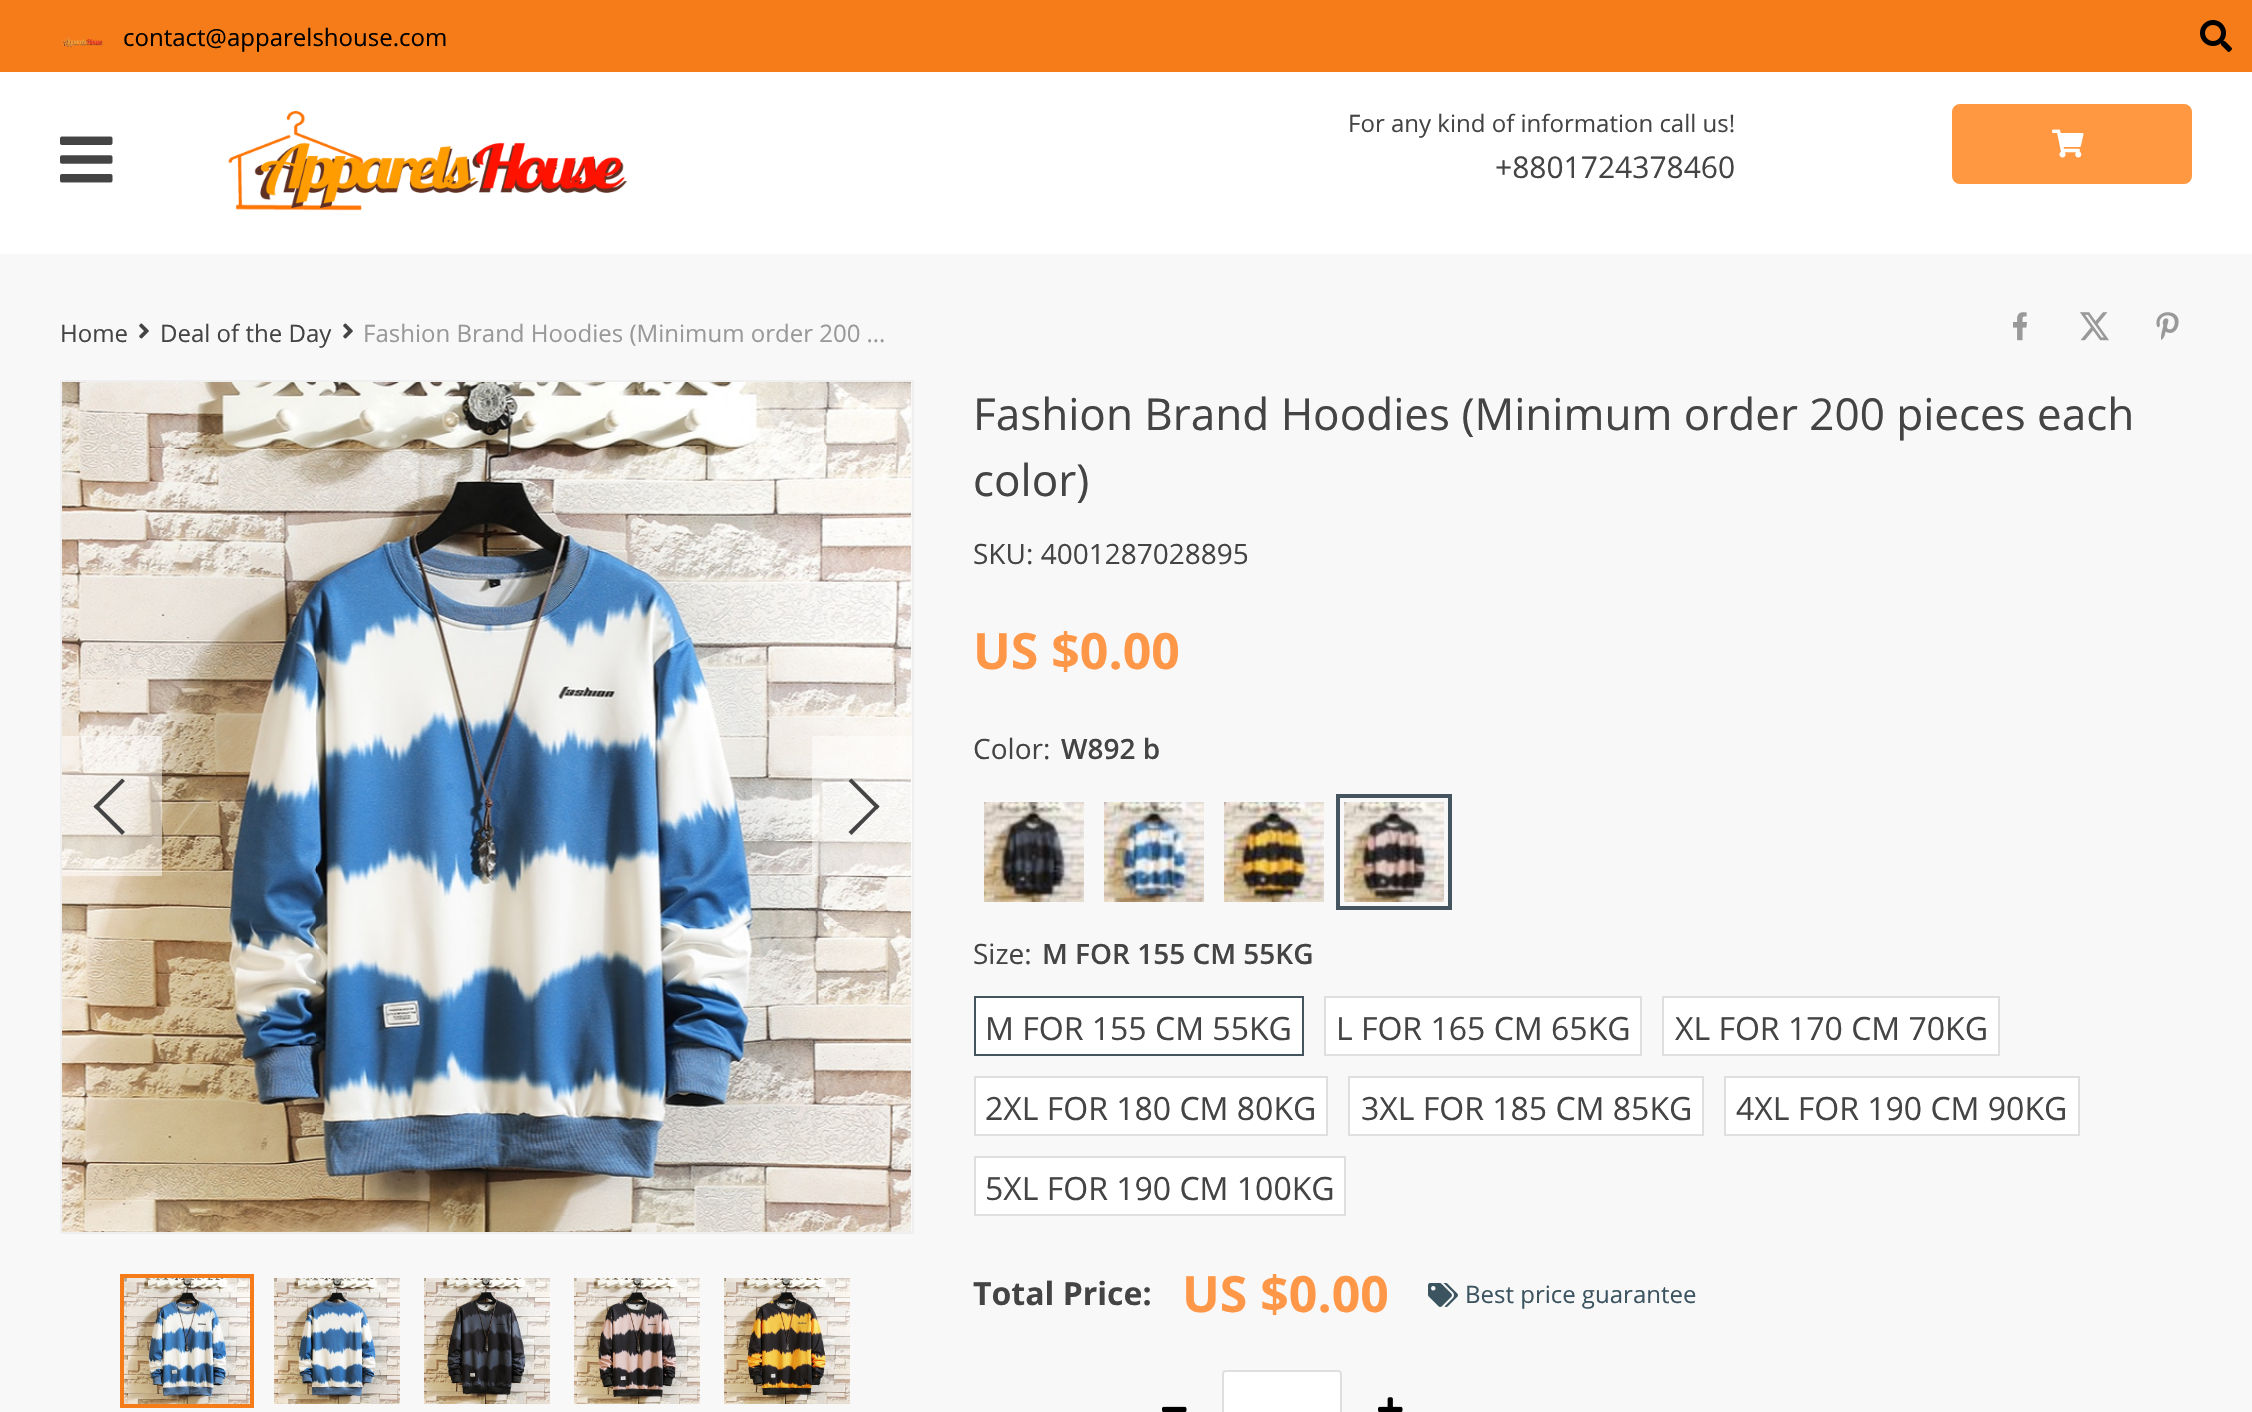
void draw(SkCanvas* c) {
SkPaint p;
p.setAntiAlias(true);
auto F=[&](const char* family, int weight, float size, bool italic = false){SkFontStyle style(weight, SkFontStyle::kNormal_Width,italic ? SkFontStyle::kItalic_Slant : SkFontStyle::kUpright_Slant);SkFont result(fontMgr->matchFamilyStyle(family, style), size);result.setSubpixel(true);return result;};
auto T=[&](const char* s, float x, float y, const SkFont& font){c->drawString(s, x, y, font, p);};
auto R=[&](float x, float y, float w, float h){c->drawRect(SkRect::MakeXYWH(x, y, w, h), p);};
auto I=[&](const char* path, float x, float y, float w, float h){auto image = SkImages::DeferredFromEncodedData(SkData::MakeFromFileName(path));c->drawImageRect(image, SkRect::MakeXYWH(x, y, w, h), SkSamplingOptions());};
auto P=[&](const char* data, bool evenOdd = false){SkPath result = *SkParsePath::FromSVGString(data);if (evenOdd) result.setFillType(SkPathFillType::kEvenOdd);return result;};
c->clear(0xfff8f8f8);
p.setColor(0xfff57c19);
R(0,0,2252,72);
I("1.png",61,35,42,13);
auto f1 = F("Open Sans",400,24);
p.setColor(0xff000000);
T("contact@apparelshouse.com",123,46,f1);
I("2.png",2200,20,32,32);
p.setColor(0xffffffff);
R(0,72,2252,182);
I("3.png",60,136,53,47);
I("4.png",228,110,400,101);
p.setColor(0xff444444);
T("For any kind of information call us!",1348,132,f1);
auto f2 = F("Open Sans",400,30);
T("+8801724378460",1495,178,f2);
p.setColor(0xffff9841);
c->drawRoundRect(SkRect::MakeXYWH(1953,105,238,78),7,7,p);
p.setStroke(true);
p.setStrokeWidth(2);
c->drawRoundRect(SkRect::MakeXYWH(1953,105,238,78),7,7,p);
I("5.png",2052,129,32,29);
p.setStroke(false);
p.setColor(0xff444444);
T("Home",60,342,f1);
I("6.png",139,323,10,16);
T("Deal of the Day",160,342,f1);
I("6.png",343,323,10,16);
p.setColor(0xff999999);
T("Fashion Brand Hoodies (Minimum order 200 …",363,342,f1);
p.setStroke(true);
p.setColor(0xffefefef);
c->drawRect(SkRect::MakeXYWH(61,381,852,852),p);
I("7.png",62,382,849,850);
p.setStroke(false);
p.setColor(0x80ffffff);
R(62,736,100,140);
p.setColor(0xff444444);
c->drawPath(P("M93.5 806.5l28.5-28l3 2.5l-28.5 28.5z"),p);
c->drawPath(P("M93.5 806.5l3-2.5l28.5 28l-3 3z"),p);
p.setColor(0x80ffffff);
R(812,736,100,140);
p.setColor(0xff444444);
c->drawPath(P("M879.5 806.5l-28 28.5l-3-3l28.5-28z"),p);
c->drawPath(P("M879.5 806.5l-2.5 3l-28.5-28.5l3-2.5z"),p);
p.setStroke(true);
p.setStrokeWidth(4);
p.setColor(0xfff57c19);
c->drawRect(SkRect::MakeXYWH(122,1276,130,130),p);
I("8.png",124,1278,126,126);
I("9.png",274,1278,126,126);
I("10.png",424,1278,126,126);
I("11.png",574,1278,126,126);
I("12.png",724,1278,126,126);
auto f3 = F("Open Sans",400,44);
p.setStroke(false);
p.setColor(0xff444444);
T("Fashion Brand Hoodies (Minimum order 200 pieces each",973,430,f3);
T("color)",973,496,f3);
auto f4 = F("Open Sans",400,28);
T("SKU: 4001287028895",973,564,f4);
auto f5 = F("Open Sans",700,50);
p.setColor(0xffff9749);
T("US $0.00",973,669,f5);
p.setColor(0xff444444);
T("Color:",973,759,f4);
auto f6 = F("Open Sans",600,28);
T("W892 b",1061,759,f6);
I("13.png",984,802,100,100);
I("14.png",1104,802,100,100);
I("15.png",1224,802,100,100);
p.setStroke(true);
p.setColor(0xff455560);
c->drawRect(SkRect::MakeXYWH(1338,796,112,112),p);
I("16.png",1344,802,100,100);
p.setStroke(false);
p.setColor(0xff444444);
T("Size:",973,964,f4);
T("M FOR 155 CM 55KG",1042,964,f6);
p.setColor(0xffffffff);
c->drawRect(SkRect::MakeXYWH(975,997,328,58),p);
p.setStroke(true);
p.setStrokeWidth(2);
p.setColor(0xff455560);
c->drawRect(SkRect::MakeXYWH(975,997,328,58),p);
auto f7 = F("Open Sans",400,32);
p.setStroke(false);
p.setColor(0xff444444);
T("M FOR 155 CM 55KG",985,1040,f7);
p.setColor(0xffffffff);
c->drawRect(SkRect::MakeXYWH(1325,997,316,58),p);
p.setStroke(true);
p.setColor(0xffdfdfdf);
c->drawRect(SkRect::MakeXYWH(1325,997,316,58),p);
p.setStroke(false);
p.setColor(0xff444444);
T("L FOR 165 CM 65KG",1336,1040,f7);
p.setColor(0xffffffff);
c->drawRect(SkRect::MakeXYWH(1663,997,336,58),p);
p.setStroke(true);
p.setColor(0xffdfdfdf);
c->drawRect(SkRect::MakeXYWH(1663,997,336,58),p);
p.setStroke(false);
p.setColor(0xff444444);
T("XL FOR 170 CM 70KG",1675,1040,f7);
p.setColor(0xffffffff);
c->drawRect(SkRect::MakeXYWH(975,1077,352,58),p);
p.setStroke(true);
p.setColor(0xffdfdfdf);
c->drawRect(SkRect::MakeXYWH(975,1077,352,58),p);
p.setStroke(false);
p.setColor(0xff444444);
T("2XL FOR 180 CM 80KG",985,1120,f7);
p.setColor(0xffffffff);
c->drawRect(SkRect::MakeXYWH(1349,1077,354,58),p);
p.setStroke(true);
p.setColor(0xffdfdfdf);
c->drawRect(SkRect::MakeXYWH(1349,1077,354,58),p);
p.setStroke(false);
p.setColor(0xff444444);
T("3XL FOR 185 CM 85KG",1361,1120,f7);
p.setColor(0xffffffff);
c->drawRect(SkRect::MakeXYWH(1725,1077,354,58),p);
p.setStroke(true);
p.setColor(0xffdfdfdf);
c->drawRect(SkRect::MakeXYWH(1725,1077,354,58),p);
p.setStroke(false);
p.setColor(0xff444444);
T("4XL FOR 190 CM 90KG",1736,1120,f7);
p.setColor(0xffffffff);
c->drawRect(SkRect::MakeXYWH(975,1157,370,58),p);
p.setStroke(true);
p.setColor(0xffdfdfdf);
c->drawRect(SkRect::MakeXYWH(975,1157,370,58),p);
p.setStroke(false);
p.setColor(0xff444444);
T("5XL FOR 190 CM 100KG",985,1200,f7);
I("17.png",2013,312,14,29);
I("18.png",2080,312,29,29);
I("19.png",2156,312,23,28);
auto f8 = F("Open Sans",700,32);
T("Total Price:",973,1305,f8);
p.setColor(0xffff9749);
T("US $0.00",1182,1312,f5);
I("20.png",1428,1283,30,24);
p.setColor(0xff3c5460);
T("Best price guarantee",1465,1303,f1);
I("21.png",1162,1406,25,6);
p.setColor(0xffffffff);
c->drawRoundRect(SkRect::MakeXYWH(1223,1371,118,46),3,3,p);
p.setStroke(true);
p.setColor(0xffdfdfdf);
c->drawRoundRect(SkRect::MakeXYWH(1223,1371,118,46),3,3,p);
I("22.png",1378,1397,25,15);
}
